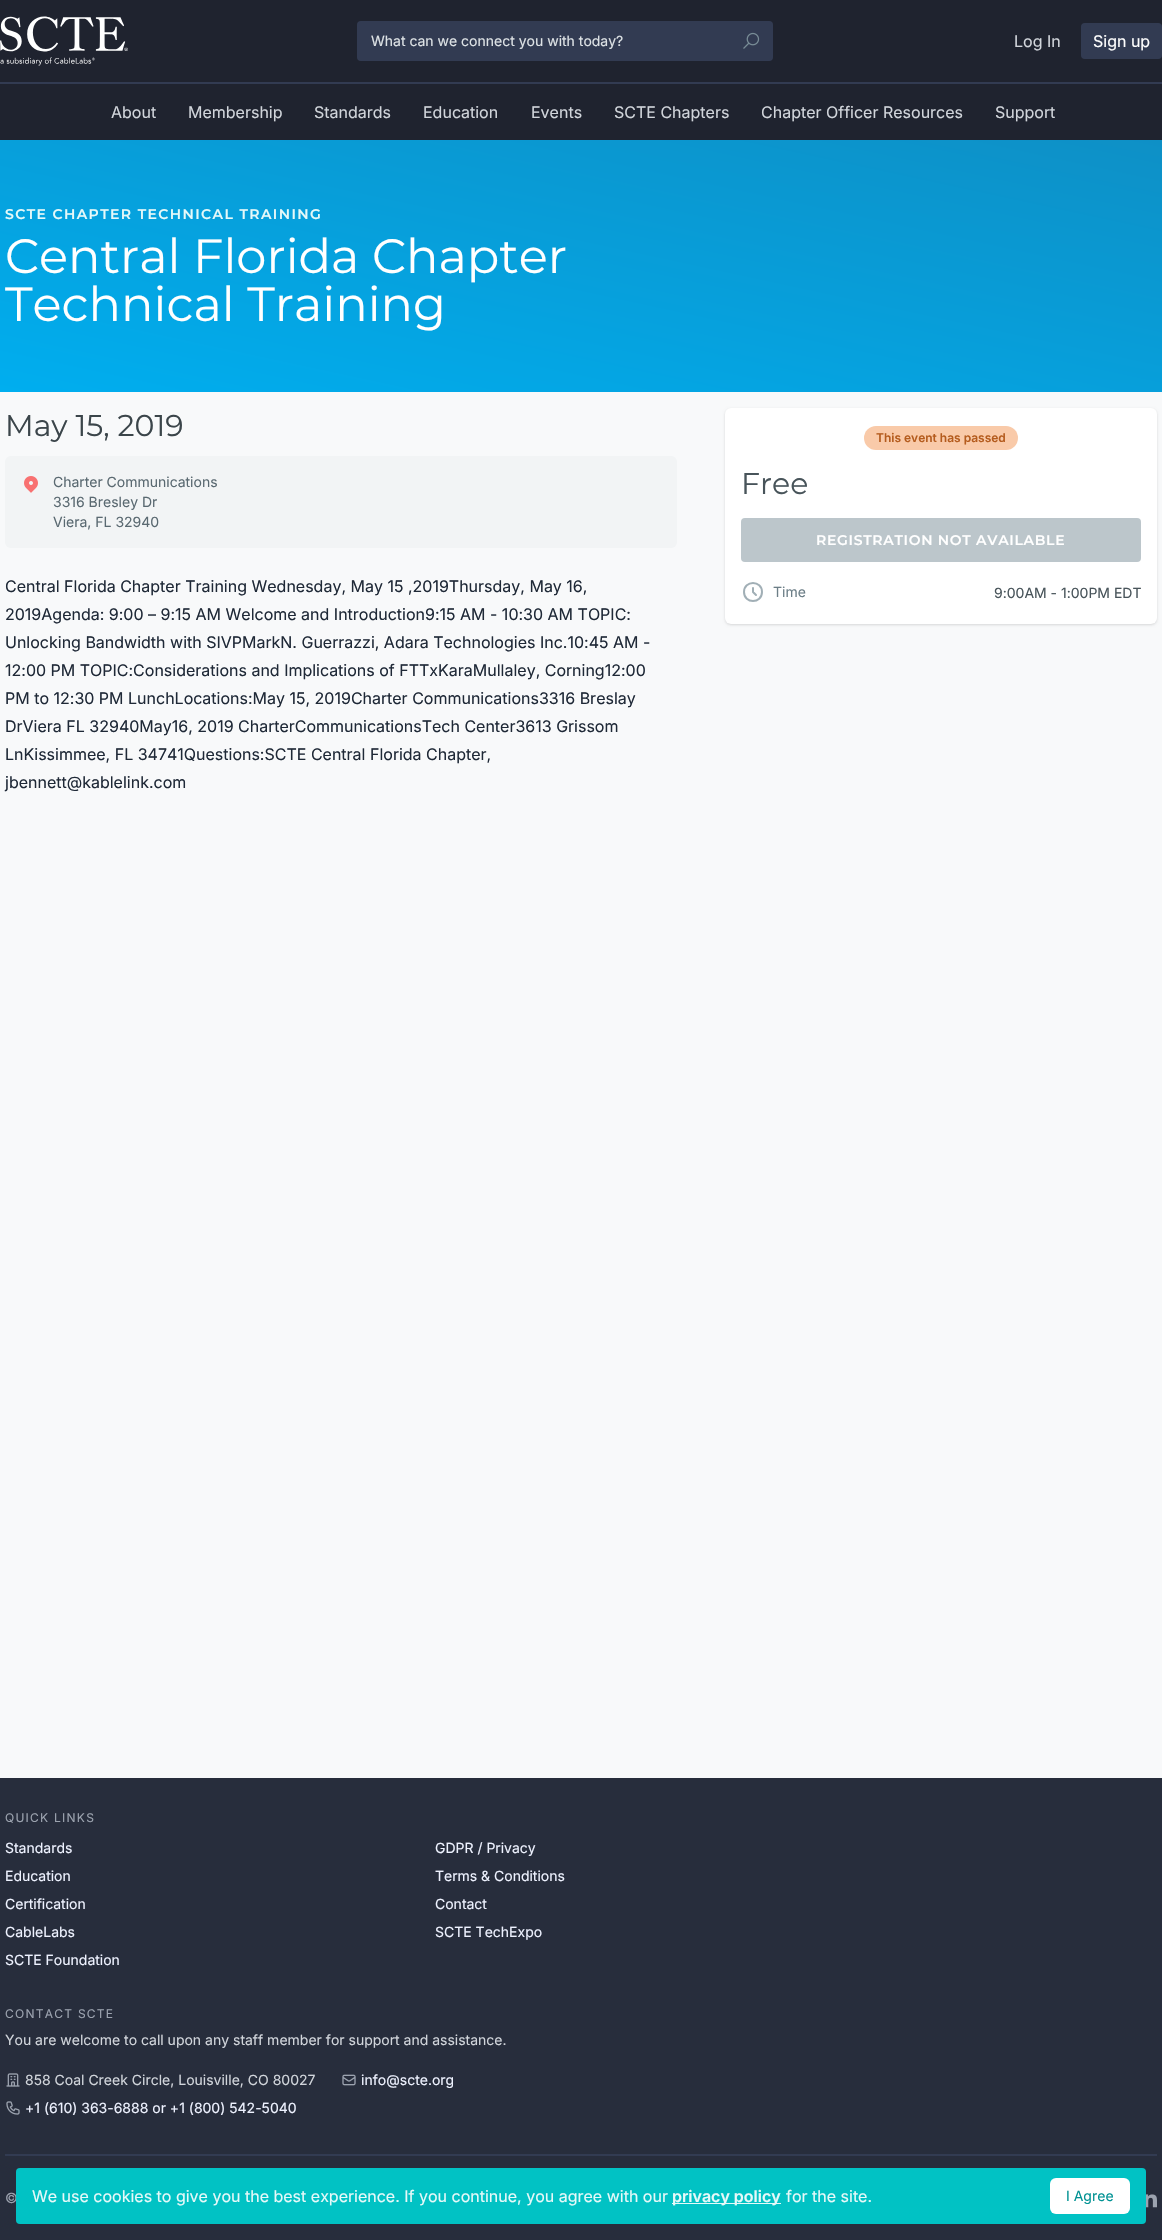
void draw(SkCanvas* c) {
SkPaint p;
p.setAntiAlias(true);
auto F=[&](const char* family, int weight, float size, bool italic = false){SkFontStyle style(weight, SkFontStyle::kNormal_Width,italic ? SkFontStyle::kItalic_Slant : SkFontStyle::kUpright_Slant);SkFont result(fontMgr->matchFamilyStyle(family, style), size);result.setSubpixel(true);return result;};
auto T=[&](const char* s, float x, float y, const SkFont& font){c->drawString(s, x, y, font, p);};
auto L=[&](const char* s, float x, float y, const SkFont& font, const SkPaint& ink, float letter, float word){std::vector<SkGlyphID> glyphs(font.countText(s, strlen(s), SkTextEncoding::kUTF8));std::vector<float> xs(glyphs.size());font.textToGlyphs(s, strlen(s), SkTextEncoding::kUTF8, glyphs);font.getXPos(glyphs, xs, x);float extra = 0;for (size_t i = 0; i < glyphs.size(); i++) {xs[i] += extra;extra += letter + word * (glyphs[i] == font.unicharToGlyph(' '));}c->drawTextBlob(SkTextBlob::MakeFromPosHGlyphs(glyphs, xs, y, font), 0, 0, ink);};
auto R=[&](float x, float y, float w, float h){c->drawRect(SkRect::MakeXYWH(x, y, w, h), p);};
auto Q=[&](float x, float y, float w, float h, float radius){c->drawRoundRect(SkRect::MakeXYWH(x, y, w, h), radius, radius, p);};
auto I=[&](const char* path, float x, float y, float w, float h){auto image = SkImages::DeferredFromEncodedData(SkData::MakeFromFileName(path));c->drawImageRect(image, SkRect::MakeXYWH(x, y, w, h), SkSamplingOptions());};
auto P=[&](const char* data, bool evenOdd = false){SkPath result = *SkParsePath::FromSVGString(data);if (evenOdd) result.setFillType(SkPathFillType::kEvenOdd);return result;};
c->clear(0xfff8f9fa);
p.setColor(0xff1f232f);
R(0,0,1162,140);
I("1.png",0,16,128,50);
p.setColor(0xff323b52);
Q(357,21,416,40,4);
auto f1 = F("Inter",400,14);
p.setColor(0xffdde2e5);
T("What can we connect you with today?",371,46,f1);
I("2.png",743,32,17,17);
auto f2 = F("Inter",400,16);
p.setColor(0xffd1d5db);
T("Log In",1014,47,f2);
p.setColor(0xff323b52);
Q(1081,23,81,36,4);
p.setColor(0xffffffff);
T("Sign up",1093,47,f2);
p.setColor(0xff323b52);
R(0,82,1162,2);
p.setColor(0xffd1d5db);
T("About",111,118,f2);
T("Membership",188,118,f2);
T("Standards",314,118,f2);
T("Education",423,118,f2);
T("Events",531,118,f2);
T("SCTE Chapters",614,118,f2);
T("Chapter Officer Resources",761,118,f2);
T("Support",995,118,f2);
{
const SkColor colors[] = {0xff00aeef,0xff0e90c6};
const float stops[] = {0,1};
const SkPoint ends[] = {{529,507}, {633,25}};
p.setShader(SkGradientShader::MakeLinear(ends, colors, stops, 2, SkTileMode::kClamp));
p.setAlpha(255);
}
R(0,140,1162,252);
auto f3 = F("Montserrat",600,14);
p.setShader(nullptr);
p.setColor(0xffe6f9f9);
L("SCTE CHAPTER TECHNICAL TRAINING",5,219,f3,p,1.4,0);
auto f4 = F("Montserrat",400,48);
p.setColor(0xffffffff);
T("Central Florida Chapter",5,273,f4);
T("Technical Training",5,321,f4);
auto f5 = F("Montserrat",400,30);
p.setColor(0xff3b454a);
T("May 15, 2019",5,436,f5);
p.setColor(0xfff2f4f5);
Q(5,456,672,92,6);
I("3.png",24,476,14,17);
p.setColor(0xff5a6971);
T("Charter Communications",53,487,f1);
T("3316 Bresley Dr",53,507,f1);
T("Viera, FL 32940",53,527,f1);
p.setColor(0xff1f2937);
T("Central Florida Chapter Training Wednesday, May 15 ,2019Thursday, May 16,",5,592,f2);
T("2019Agenda: 9:00 – 9:15 AM Welcome and Introduction9:15 AM - 10:30 AM TOPIC:",5,620,f2);
T("Unlocking Bandwidth with SIVPMarkN. Guerrazzi, Adara Technologies Inc.10:45 AM -",5,648,f2);
T("12:00 PM TOPIC:Considerations and Implications of FTTxKaraMullaley, Corning12:00",5,676,f2);
T("PM to 12:30 PM LunchLocations:May 15, 2019Charter Communications3316 Breslay",5,704,f2);
T("DrViera FL 32940May16, 2019 CharterCommunicationsTech Center3613 Grissom",5,732,f2);
T("LnKissimmee, FL 34741Questions:SCTE Central Florida Chapter,",5,760,f2);
T("jbennett@kablelink.com",5,788,f2);
p.setColor(0x1a000000);
p.setMaskFilter(SkMaskFilter::MakeBlur(kNormal_SkBlurStyle, 1));
c->drawRoundRect(SkRect::MakeXYWH(726,410,430,214),5,5,p);
p.setMaskFilter(nullptr);
p.setMaskFilter(SkMaskFilter::MakeBlur(kNormal_SkBlurStyle, 1.5));
c->drawRoundRect(SkRect::MakeXYWH(725,409,432,216),6,6,p);
p.setMaskFilter(nullptr);
p.setColor(0xffffffff);
Q(725,408,432,216,6);
p.setColor(0xfff9caa9);
Q(864,426,154,24,12);
auto f6 = F("Inter",600,12);
p.setColor(0xffb55c1e);
T("This event has passed",876,442,f6);
p.setColor(0xff48545a);
T("Free",741,494,f5);
p.setColor(0xffbcc6cb);
Q(741,518,400,44,4);
p.setColor(0xffffffff);
L("REGISTRATION NOT AVAILABLE",816,545,f3,p,.7,0);
p.setStroke(true);
p.setStrokeWidth(2);
p.setStrokeCap(SkPaint::kRound_Cap);
p.setStrokeJoin(SkPaint::kRound_Join);
p.setColor(0xffa1afb6);
c->drawPath(P("M753 588v4l3 3m6-3c0 12-18 12-18 0c0-12 18-12 18 0z"),p);
p.setStroke(false);
p.setColor(0xff6c7e87);
T("Time",773,597,f1);
p.setColor(0xff48545a);
T("9:00AM - 1:00PM EDT",994,598,f1);
p.setColor(0xff272d3c);
R(0,1778,1162,462);
auto f7 = F("Inter",400,12);
p.setColor(0xff9ca3af);
L("QUICK LINKS",5,1822,f7,p,1.25,0);
p.setColor(0xffeef2ff);
T("Standards",5,1853,f1);
T("GDPR / Privacy",435,1853,f1);
T("Education",5,1881,f1);
T("Terms & Conditions",435,1881,f1);
T("Certification",5,1909,f1);
T("Contact",435,1909,f1);
T("CableLabs",5,1937,f1);
T("SCTE TechExpo",435,1937,f1);
T("SCTE Foundation",5,1965,f1);
p.setColor(0xff9ca3af);
L("CONTACT SCTE",5,2018,f7,p,1.25,0);
p.setColor(0xffd1d5db);
T("You are welcome to call upon any staff member for support and assistance.",5,2045,f1);
I("4.png",6,2073,14,14);
T("858 Coal Creek Circle, Louisville, CO 80027",25,2085,f1);
I("5.png",342,2074,14,12);
p.setColor(0xffeef2ff);
T("info@scte.org",361,2085,f1);
I("6.png",6,2101,14,14);
T("+1 (610) 363-6888 or +1 (800) 542-5040",25,2113,f1);
p.setColor(0xff323b52);
R(5,2154,1152,2);
p.setColor(0xff9ca3af);
T("©",5,2203,f1);
I("7.png",1146,2194,11,14);
p.setColor(0xff01c2c4);
Q(16,2168,1130,56,4);
p.setColor(0xffe6f9f9);
T("We use cookies to give you the best experience. If you continue, you agree with our",32,2202,f2);
R(672,2203,109,1);
auto f8 = F("Inter",600,16);
T("privacy policy",672,2202,f8);
T("for the site.",786,2202,f2);
p.setColor(0xffffffff);
Q(1050,2178,80,36,6);
p.setColor(0xff019293);
T("I Agree",1066,2201,f1);
}
